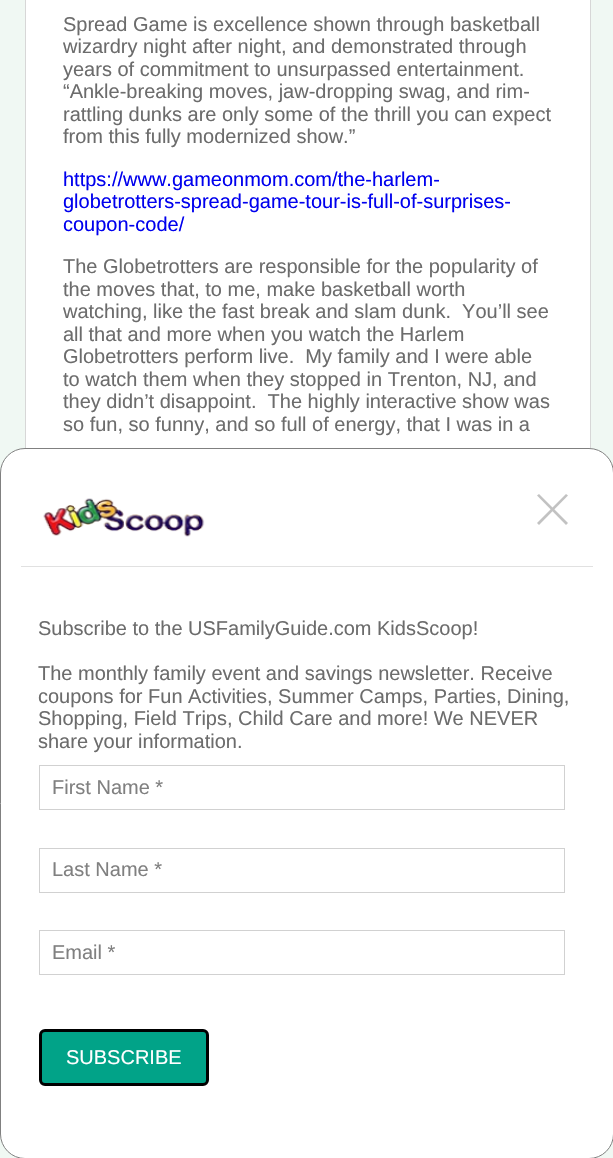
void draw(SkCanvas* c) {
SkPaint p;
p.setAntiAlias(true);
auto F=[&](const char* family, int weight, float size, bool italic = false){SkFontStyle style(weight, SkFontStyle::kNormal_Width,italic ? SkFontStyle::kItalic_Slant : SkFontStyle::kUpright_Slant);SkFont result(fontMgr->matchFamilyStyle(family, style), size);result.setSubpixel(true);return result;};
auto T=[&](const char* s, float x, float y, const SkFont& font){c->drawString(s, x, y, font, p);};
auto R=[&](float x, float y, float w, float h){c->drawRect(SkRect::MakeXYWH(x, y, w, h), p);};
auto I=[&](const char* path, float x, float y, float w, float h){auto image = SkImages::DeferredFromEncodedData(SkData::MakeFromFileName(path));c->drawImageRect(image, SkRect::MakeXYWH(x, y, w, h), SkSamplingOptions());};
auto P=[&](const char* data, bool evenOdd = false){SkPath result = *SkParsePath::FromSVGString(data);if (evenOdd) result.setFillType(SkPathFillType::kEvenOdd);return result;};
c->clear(0xfff0f8f3);
p.setColor(0xffffffff);
R(26,0,564,449);
p.setStroke(true);
p.setStrokeWidth(1);
p.setColor(0xffd7d7d7);
c->drawRect(SkRect::MakeXYWH(25.5,-.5,565,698),p);
auto f1 = F("Liberation Sans",400,20);
p.setStroke(false);
p.setColor(0xff6c6c6c);
T("Spread Game is excellence shown through basketball",63,31,f1);
T("wizardry night after night, and demonstrated through",63,53,f1);
T("years of commitment to unsurpassed entertainment.",63,76,f1);
T("“Ankle-breaking moves, jaw-dropping swag, and rim-",63,98,f1);
T("rattling dunks are only some of the thrill you can expect",63,121,f1);
T("from this fully modernized show.”",63,143,f1);
p.setColor(0xff0000ee);
T("https://www.gameonmom.com/the-harlem-",63,186,f1);
T("globetrotters-spread-game-tour-is-full-of-surprises-",63,208,f1);
T("coupon-code/",63,231,f1);
p.setColor(0xff6c6c6c);
T("The Globetrotters are responsible for the popularity of",63,273,f1);
T("the moves that, to me, make basketball worth",63,296,f1);
T("watching, like the fast break and slam dunk.  You’ll see",63,318,f1);
T("all that and more when you watch the Harlem",63,341,f1);
T("Globetrotters perform live.  My family and I were able",63,363,f1);
T("to watch them when they stopped in Trenton, NJ, and",63,386,f1);
T("they didn’t disappoint.  The highly interactive show was",63,408,f1);
T("so fun, so funny, and so full of energy, that I was in a",63,431,f1);
p.setColor(0xffffffff);
c->drawRoundRect(SkRect::MakeXYWH(.5,448.5,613,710),24.5,24.5,p);
p.setStroke(true);
p.setColor(0xff808080);
c->drawRoundRect(SkRect::MakeXYWH(.5,448.5,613,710),24.5,24.5,p);
I("1.png",43,498,162,39);
p.setStroke(false);
p.setColor(0xffc2c2c2);
c->drawPath(P("M566 494l2 1.5l-29 29.5l-2-2z"),p);
c->drawPath(P("M537 495.5l2-1.5l29 29l-2 2z"),p);
p.setColor(0xffe1e1e1);
R(21,566,572,1);
p.setColor(0xff6c6c6c);
T("Subscribe to the USFamilyGuide.com KidsScoop!",38,635,f1);
T("The monthly family event and savings newsletter. Receive",38,680,f1);
T("coupons for Fun Activities, Summer Camps, Parties, Dining,",38,703,f1);
T("Shopping, Field Trips, Child Care and more! We NEVER",38,725,f1);
T("share your information.",38,748,f1);
p.setStroke(true);
p.setColor(0xffd1d1d1);
c->drawRect(SkRect::MakeXYWH(39.5,765.5,525,44),p);
p.setStroke(false);
p.setColor(0xff808080);
T("First Name *",52,794,f1);
p.setStroke(true);
p.setColor(0xffd1d1d1);
c->drawRect(SkRect::MakeXYWH(39.5,848.5,525,44),p);
p.setStroke(false);
p.setColor(0xff808080);
T("Last Name *",52,876,f1);
p.setStroke(true);
p.setColor(0xffd1d1d1);
c->drawRect(SkRect::MakeXYWH(39.5,930.5,525,44),p);
p.setStroke(false);
p.setColor(0xff808080);
T("Email *",52,959,f1);
p.setColor(0xff01a388);
c->drawRoundRect(SkRect::MakeXYWH(40.5,1030.5,167,54),4.5,4.5,p);
p.setStroke(true);
p.setStrokeWidth(3);
p.setColor(0xff000000);
c->drawRoundRect(SkRect::MakeXYWH(40.5,1030.5,167,54),4.5,4.5,p);
p.setStroke(false);
p.setColor(0xffffffff);
T("SUBSCRIBE",66,1064,f1);
}
